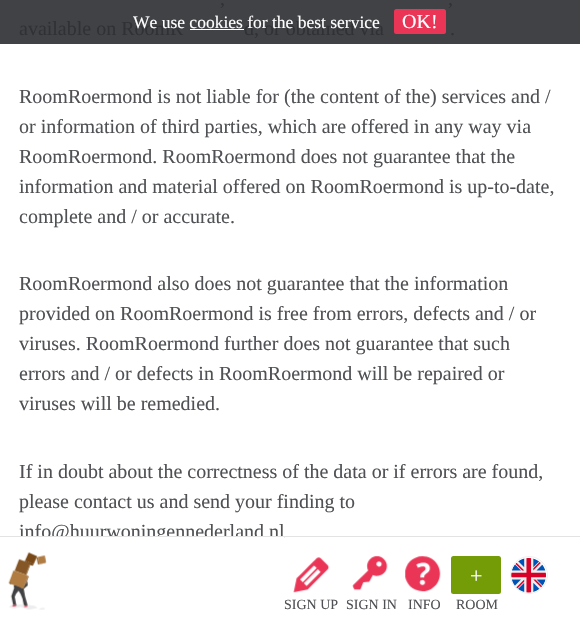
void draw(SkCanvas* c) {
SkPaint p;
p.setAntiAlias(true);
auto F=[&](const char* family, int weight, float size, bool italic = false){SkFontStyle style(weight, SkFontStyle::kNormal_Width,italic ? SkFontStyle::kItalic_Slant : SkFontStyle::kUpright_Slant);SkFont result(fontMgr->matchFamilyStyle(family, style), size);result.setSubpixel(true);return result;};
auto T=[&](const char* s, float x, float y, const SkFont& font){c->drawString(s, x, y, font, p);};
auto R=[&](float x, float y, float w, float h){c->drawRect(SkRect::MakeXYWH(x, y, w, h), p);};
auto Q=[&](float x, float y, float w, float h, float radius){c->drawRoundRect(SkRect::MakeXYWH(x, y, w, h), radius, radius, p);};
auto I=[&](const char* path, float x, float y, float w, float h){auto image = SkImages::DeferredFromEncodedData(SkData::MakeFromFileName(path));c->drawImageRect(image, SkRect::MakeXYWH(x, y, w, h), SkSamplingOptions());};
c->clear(0xffffffff);
p.setColor(0xff404246);
R(0,0,580,44);
auto f1 = F("Liberation Serif",400,20);
p.setColor(0xff2f3135);
T(",",220,5,f1);
T(",",448,5,f1);
T("available on RoomR",19,35,f1);
T("d, or obtained via",244,35,f1);
T(".",450,35,f1);
p.setColor(0xff4f5154);
T("RoomRoermond is not liable for (the content of the) services and /",19,103,f1);
T("or information of third parties, which are offered in any way via",19,133,f1);
T("RoomRoermond. RoomRoermond does not guarantee that the",19,163,f1);
T("information and material offered on RoomRoermond is up-to-date,",19,193,f1);
T("complete and / or accurate.",19,223,f1);
T("RoomRoermond also does not guarantee that the information",19,290,f1);
T("provided on RoomRoermond is free from errors, defects and / or",19,320,f1);
T("viruses. RoomRoermond further does not guarantee that such",19,350,f1);
T("errors and / or defects in RoomRoermond will be repaired or",19,380,f1);
T("viruses will be remedied.",19,410,f1);
T("If in doubt about the correctness of the data or if errors are found,",19,478,f1);
T("please contact us and send your finding to",19,508,f1);
T("info@huurwoningennederland.nl",19,538,f1);
auto f2 = F("Liberation Serif",400,17.5);
p.setColor(0xffffffff);
T("We use cookies for the best service",133,28,f2);
p.setColor(0xffea3556);
Q(394,9,52,25,2.5);
p.setColor(0xffffffff);
T("OK!",402,28,f1);
R(190,29,54,1);
R(19,537,265,6);
p.setColor(0xffe3e3e3);
R(0,536,580,1);
I("1.png",8,552,39,58);
I("2.png",293,557,37,36);
auto f3 = F("Liberation Serif",400,14);
p.setColor(0xff4f5154);
T("SIGN UP",284,609,f3);
I("3.png",352,556,36,35);
T("SIGN IN",346,609,f3);
I("4.png",405,556,36,36);
T("INFO",408,609,f3);
p.setColor(0xff739c07);
Q(451,556,50,38,2.5);
auto f4 = F("Liberation Serif",400,22);
p.setColor(0xffffffff);
T("+",470,583,f4);
p.setColor(0xff4f5154);
T("ROOM",456,609,f3);
p.setStroke(true);
p.setStrokeWidth(1);
p.setColor(0xfff0f0f0);
c->drawCircle(529,575,18.5,p);
I("5.png",511,558,35,35);
}
